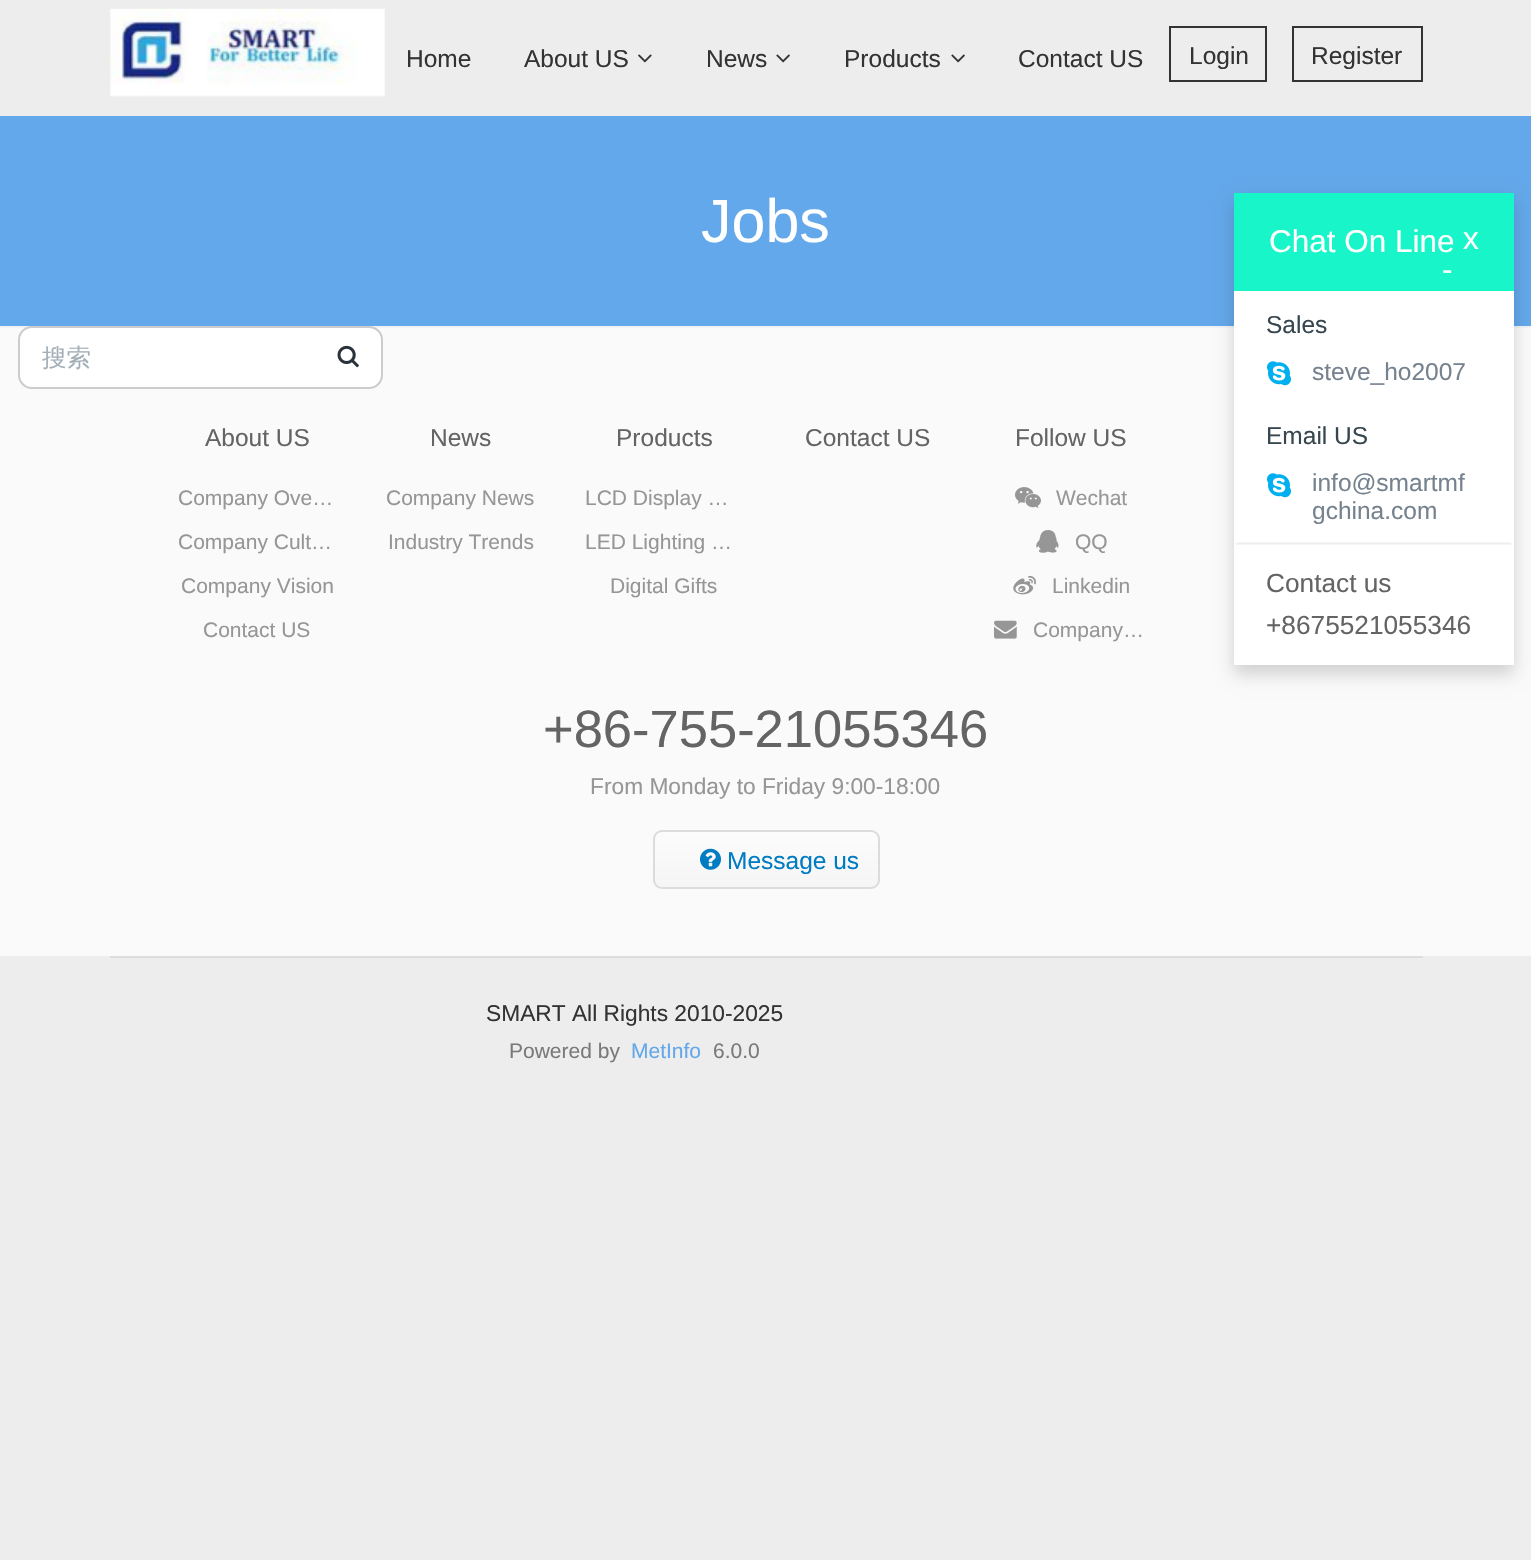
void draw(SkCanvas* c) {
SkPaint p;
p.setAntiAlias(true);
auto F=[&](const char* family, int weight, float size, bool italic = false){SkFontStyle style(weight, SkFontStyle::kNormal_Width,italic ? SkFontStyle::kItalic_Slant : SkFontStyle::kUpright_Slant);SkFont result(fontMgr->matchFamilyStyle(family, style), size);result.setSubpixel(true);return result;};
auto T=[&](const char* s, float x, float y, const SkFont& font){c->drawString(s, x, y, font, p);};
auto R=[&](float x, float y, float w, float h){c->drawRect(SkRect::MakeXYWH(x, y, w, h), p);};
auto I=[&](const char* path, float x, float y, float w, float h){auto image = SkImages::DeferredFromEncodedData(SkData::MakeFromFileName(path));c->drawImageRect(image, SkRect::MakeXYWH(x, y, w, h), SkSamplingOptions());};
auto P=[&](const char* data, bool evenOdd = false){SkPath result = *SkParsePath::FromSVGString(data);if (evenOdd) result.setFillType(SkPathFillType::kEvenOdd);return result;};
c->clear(0xffededed);
I("1.png",110,8,275,89);
auto f1 = F("Liberation Sans",400,24.5);
p.setColor(0xff333333);
T("Home",406,67,f1);
T("About US",524,67,f1);
I("2.png",638,54,14,9);
T("News",706,67,f1);
I("3.png",776,54,14,9);
T("Products",844,67,f1);
I("3.png",951,54,14,9);
T("Contact US",1018,67,f1);
p.setStroke(true);
p.setStrokeWidth(2);
c->drawRect(SkRect::MakeXYWH(1170,27,96,54),p);
p.setStroke(false);
T("Login",1189,64,f1);
p.setStroke(true);
c->drawRect(SkRect::MakeXYWH(1293,27,129,54),p);
p.setStroke(false);
T("Register",1311,64,f1);
p.setColor(0xff62a8ea);
R(0,116,1531,210);
auto f2 = F("Liberation Sans",400,61);
p.setColor(0xffffffff);
T("Jobs",701,242,f2);
p.setColor(0xfffafafa);
R(0,328,1531,628);
p.setColor(0xfff0f2f5);
R(0,326,1531,2);
p.setColor(0xffffffff);
c->drawRoundRect(SkRect::MakeXYWH(19,327,363,61),13,13,p);
p.setStroke(true);
p.setColor(0xffcccccc);
c->drawRoundRect(SkRect::MakeXYWH(19,327,363,61),13,13,p);
auto f3 = F("WenQuanYi Zen Hei",500,24.5);
p.setStroke(false);
p.setColor(0xffa3afb7);
T("搜索",42,366,f3);
I("4.png",337,345,22,23);
p.setColor(0x2b040000);
p.setMaskFilter(SkMaskFilter::MakeBlur(kNormal_SkBlurStyle, 8));
c->drawRect(SkRect::MakeXYWH(1234,201,280,473),p);
p.setMaskFilter(nullptr);
p.setColor(0xffffffff);
R(1234,291,280,374);
p.setColor(0xff18f5c9);
R(1234,193,280,98);
auto f4 = F("Liberation Sans",400,31.5);
p.setColor(0xffffffff);
T("Chat On Line",1269,252,f4);
T("x",1463,249,f4);
T("-",1442,280,f4);
p.setColor(0xff37474f);
T("Sales",1266,333,f1);
I("5.png",1267,361,24,25);
p.setColor(0xff76838f);
T("steve_ho2007",1312,380,f1);
p.setColor(0xff37474f);
T("Email US",1266,444,f1);
I("5.png",1267,473,24,25);
p.setColor(0xff76838f);
T("info@smartmf",1312,491,f1);
T("gchina.com",1312,519,f1);
p.setStroke(true);
p.setStrokeWidth(1.8);
p.setColor(0xffeeeeee);
c->drawPath(P("M1236 544.5c.5-.5 2-1 3-1h269.5c1 0 2.5 .5 3 1"),p);
auto f5 = F("Liberation Sans",400,26.25);
p.setStroke(false);
p.setColor(0xff646464);
T("Contact us",1266,592,f5);
T("+8675521055346",1266,634,f5);
T("About US",205,446,f1);
auto f6 = F("Liberation Sans",400,21);
p.setColor(0xff969696);
T("Company Ove…",178,505,f6);
T("Company Cult…",178,549,f6);
T("Company Vision",181,593,f6);
T("Contact US",203,637,f6);
p.setColor(0xff646464);
T("News",430,446,f1);
p.setColor(0xff969696);
T("Company News",386,505,f6);
T("Industry Trends",388,549,f6);
p.setColor(0xff646464);
T("Products",616,446,f1);
p.setColor(0xff969696);
T("LCD Display …",585,505,f6);
T("LED Lighting …",585,549,f6);
T("Digital Gifts",610,593,f6);
p.setColor(0xff646464);
T("Contact US",805,446,f1);
T("Follow US",1015,446,f1);
I("6.png",1015,487,26,21);
p.setColor(0xff969696);
T("Wechat",1056,505,f6);
I("7.png",1036,530,23,23);
T("QQ",1075,549,f6);
I("8.png",1013,576,23,19);
T("Linkedin",1052,593,f6);
I("9.png",994,620,23,19);
T("Company…",1033,637,f6);
auto f7 = F("Liberation Sans",400,52.5);
p.setColor(0xff646464);
T("+86-755-21055346",543,747,f7);
auto f8 = F("Liberation Sans",400,22.75);
p.setColor(0xff969696);
T("From Monday to Friday 9:00-18:00",590,794,f8);
c->save();
c->clipPath(P("M662 830h209c5 0 9 4 9 9v41c0 5-4 9-9 9h-209c-5 0-9-4-9-9v-41c0-5 4-9 9-9z"),true);
{
const SkColor colors[] = {0xfffcfcfc,0xfff5f5f5};
const float stops[] = {0,1};
const SkPoint ends[] = {{767,831}, {767,887}};
p.setShader(SkGradientShader::MakeLinear(ends, colors, stops, 2, SkTileMode::kClamp));
p.setAlpha(255);
}
R(653,831,227,56);
c->restore();
p.setStroke(true);
p.setStrokeWidth(2);
p.setShader(nullptr);
p.setColor(0xffdcdcdc);
c->drawRoundRect(SkRect::MakeXYWH(654,831,225,57),8,8,p);
I("10.png",700,848,21,22);
p.setStroke(false);
p.setColor(0xff007cc3);
T("Message us",727,869,f1);
p.setColor(0xffdddddd);
R(110,956,1313,2);
p.setColor(0xff333333);
T("SMART All Rights 2010-2025",486,1021,f8);
p.setColor(0xff7a7a7a);
T("Powered by",509,1058,f6);
p.setColor(0xff62a8ea);
T("MetInfo",631,1058,f6);
p.setColor(0xff7a7a7a);
T("6.0.0",713,1058,f6);
}
